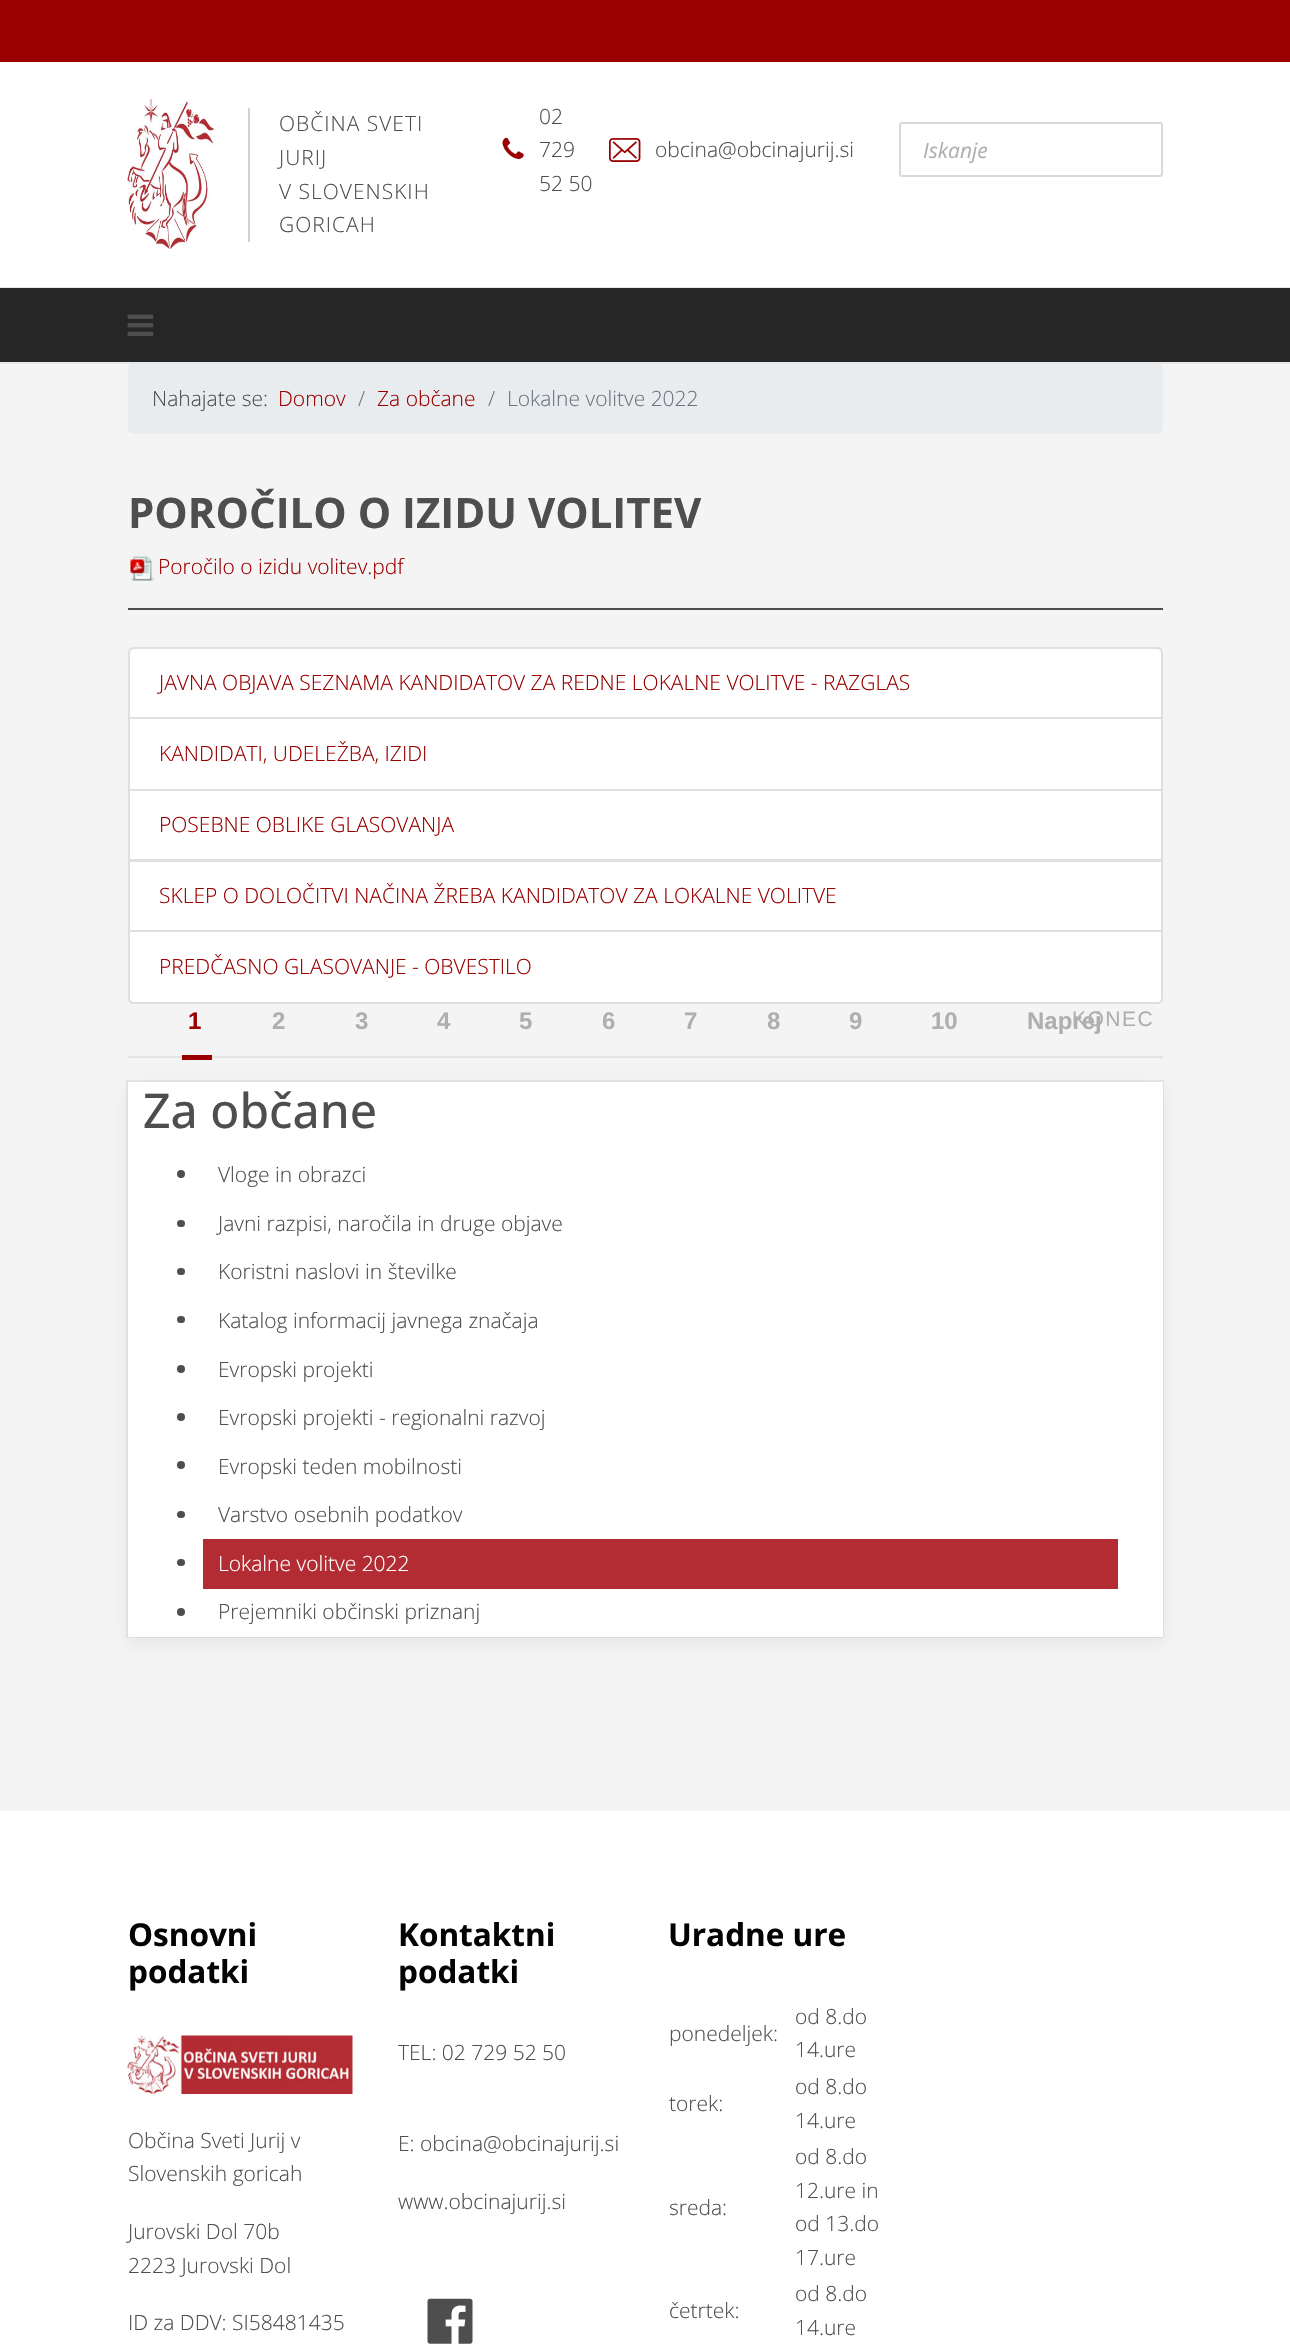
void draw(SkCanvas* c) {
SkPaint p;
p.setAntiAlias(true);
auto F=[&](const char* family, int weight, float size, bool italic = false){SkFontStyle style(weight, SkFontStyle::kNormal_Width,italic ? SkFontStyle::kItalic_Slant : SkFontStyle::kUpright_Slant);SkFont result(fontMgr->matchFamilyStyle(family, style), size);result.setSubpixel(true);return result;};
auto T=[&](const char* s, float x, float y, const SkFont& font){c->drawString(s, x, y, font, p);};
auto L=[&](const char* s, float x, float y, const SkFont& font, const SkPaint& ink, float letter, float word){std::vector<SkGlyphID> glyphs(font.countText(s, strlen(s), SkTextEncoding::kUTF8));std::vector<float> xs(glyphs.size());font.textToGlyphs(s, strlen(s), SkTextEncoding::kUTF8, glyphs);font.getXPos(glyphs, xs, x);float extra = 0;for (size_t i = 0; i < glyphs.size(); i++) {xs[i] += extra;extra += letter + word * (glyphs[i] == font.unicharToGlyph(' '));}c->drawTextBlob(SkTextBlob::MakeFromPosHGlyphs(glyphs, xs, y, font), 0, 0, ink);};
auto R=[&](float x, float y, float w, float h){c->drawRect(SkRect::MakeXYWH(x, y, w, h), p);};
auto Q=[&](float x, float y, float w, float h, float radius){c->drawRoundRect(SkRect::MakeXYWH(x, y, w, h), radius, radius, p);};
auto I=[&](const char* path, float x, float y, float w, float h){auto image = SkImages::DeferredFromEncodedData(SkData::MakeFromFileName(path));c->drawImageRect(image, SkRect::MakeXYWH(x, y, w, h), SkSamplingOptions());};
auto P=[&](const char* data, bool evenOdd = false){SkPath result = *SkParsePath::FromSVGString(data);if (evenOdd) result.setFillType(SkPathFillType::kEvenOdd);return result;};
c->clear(0xfff4f4f4);
p.setColor(0xff9a0000);
R(0,0,1290,62);
p.setColor(0xffffffff);
R(0,62,1290,225);
p.setColor(0xffe6e6e6);
R(0,287,1290,1);
I("1.png",127,99,88,150);
p.setColor(0xffd1d1d1);
R(248,108,2,134);
auto f1 = F("Open Sans",300,21);
p.setColor(0xff4e4e4e);
L("OBČINA SVETI",279,131,f1,p,1,0);
L("JURIJ",279,165,f1,p,1,0);
L("V SLOVENSKIH",279,199,f1,p,1,0);
L("GORICAH",279,232,f1,p,1,0);
I("2.png",502,137,22,22);
T("02",539,124,f1);
T("729",539,157,f1);
T("52 50",539,191,f1);
I("3.png",609,138,32,24);
T("obcina@obcinajurij.si",655,157,f1);
p.setStroke(true);
p.setStrokeWidth(2);
p.setColor(0xffd9d9d9);
c->drawRoundRect(SkRect::MakeXYWH(900,123,262,53),2,2,p);
auto f2 = F("Open Sans",400,21,true);
p.setStroke(false);
p.setColor(0xffafafaf);
T("Iskanje",923,158,f2);
p.setColor(0xff262626);
R(0,288,1290,74);
p.setColor(0xffe9ecef);
Q(128,363,1035,71,6);
p.setColor(0xffe6e6e6);
R(0,362,1290,2);
I("4.png",127,314,27,22);
p.setColor(0xff4e4e4e);
T("Nahajate se:",152,406,f1);
p.setColor(0xff9a0000);
T("Domov",278,406,f1);
p.setColor(0xff6c757d);
T("/",358,406,f1);
p.setColor(0xff9a0000);
T("Za občane",377,406,f1);
p.setColor(0xff6c757d);
T("/",488,406,f1);
T("Lokalne volitve 2022",507,406,f1);
auto f3 = F("Open Sans",700,42);
p.setColor(0xff4e4e4e);
T("POROČILO O IZIDU VOLITEV",128,528,f3);
R(128,608,1035,2);
I("5.png",130,556,25,25);
p.setColor(0xff9a0000);
T("Poročilo o izidu volitev.pdf",158,574,f1);
p.setColor(0xffffffff);
c->drawPath(P("M134 648h1023c3 0 5 2 5 5v65h-1033v-65c0-3 2-5 5-5z"),p);
p.setStroke(true);
p.setColor(0xffdfdfdf);
c->drawPath(P("M134 648h1023c3 0 5 2 5 5v65h-1033v-65c0-3 2-5 5-5z"),p);
p.setStroke(false);
p.setColor(0xff9a0000);
T("JAVNA OBJAVA SEZNAMA KANDIDATOV ZA REDNE LOKALNE VOLITVE - RAZGLAS",159,690,f1);
p.setColor(0xffffffff);
c->drawRect(SkRect::MakeXYWH(129,718,1033,72),p);
p.setStroke(true);
p.setColor(0xffdfdfdf);
c->drawRect(SkRect::MakeXYWH(129,718,1033,72),p);
p.setStroke(false);
p.setColor(0xff9a0000);
T("KANDIDATI, UDELEŽBA, IZIDI",159,761,f1);
p.setColor(0xffffffff);
c->drawRect(SkRect::MakeXYWH(129,790,1033,70),p);
p.setStroke(true);
p.setColor(0xffdfdfdf);
c->drawRect(SkRect::MakeXYWH(129,790,1033,70),p);
p.setStroke(false);
p.setColor(0xff9a0000);
T("POSEBNE OBLIKE GLASOVANJA",159,832,f1);
p.setColor(0xffffffff);
c->drawRect(SkRect::MakeXYWH(129,861,1033,70),p);
p.setStroke(true);
p.setColor(0xffdfdfdf);
c->drawRect(SkRect::MakeXYWH(129,861,1033,70),p);
p.setStroke(false);
p.setColor(0xff9a0000);
T("SKLEP O DOLOČITVI NAČINA ŽREBA KANDIDATOV ZA LOKALNE VOLITVE",159,903,f1);
p.setColor(0xffffffff);
c->drawPath(P("M129 931h1033v67c0 3-2 5-5 5h-1023c-3 0-5-2-5-5z"),p);
p.setStroke(true);
p.setColor(0xffdfdfdf);
c->drawPath(P("M129 931h1033v67c0 3-2 5-5 5h-1023c-3 0-5-2-5-5z"),p);
p.setStroke(false);
p.setColor(0xff9a0000);
T("PREDČASNO GLASOVANJE - OBVESTILO",159,974,f1);
p.setColor(0xffe3e3e3);
R(128,1056,1035,2);
p.setColor(0xff9a0000);
R(182,1055,30,5);
auto f4 = F("Liberation Sans",700,24);
L("1",188,1029,f4,p,1.5,0);
p.setColor(0xffafafaf);
T("2",272,1029,f4);
T("3",355,1029,f4);
T("4",437,1029,f4);
T("5",519,1029,f4);
T("6",602,1029,f4);
T("7",684,1029,f4);
T("8",767,1029,f4);
T("9",849,1029,f4);
T("10",931,1029,f4);
T("Naprej",1027,1029,f4);
auto f5 = F("Liberation Sans",400,21);
L("KONEC",1072,1026,f5,p,1.5,0);
p.setColor(0x0f000000);
p.setMaskFilter(SkMaskFilter::MakeBlur(kNormal_SkBlurStyle, 7.5));
c->drawRect(SkRect::MakeXYWH(128,1088,1035,555),p);
p.setMaskFilter(nullptr);
p.setStroke(true);
c->drawRect(SkRect::MakeXYWH(127,1081,1036,556),p);
p.setStroke(false);
p.setColor(0xffffffff);
R(128,1082,1035,555);
auto f6 = F("Open Sans",500,48);
p.setColor(0xff4e4e4e);
T("Za občane",143,1128,f6);
c->drawCircle(181,1174,4,p);
T("Vloge in obrazci",218,1182,f1);
Q(177,1220,8,7,3.5);
T("Javni razpisi, naročila in druge objave",218,1231,f1);
Q(177,1268,8,7,3.5);
T("Koristni naslovi in številke",218,1279,f1);
Q(177,1316,8,7,3.5);
T("Katalog informacij javnega značaja",218,1328,f1);
c->drawCircle(181,1369,4,p);
T("Evropski projekti",218,1377,f1);
c->drawCircle(181,1417,4,p);
T("Evropski projekti - regionalni razvoj",218,1425,f1);
c->drawCircle(181,1465,4,p);
T("Evropski teden mobilnosti",218,1474,f1);
Q(177,1511,8,7,3.5);
T("Varstvo osebnih podatkov",218,1522,f1);
Q(177,1559,8,7,3.5);
p.setColor(0xffb32c33);
R(203,1539,915,50);
p.setColor(0xffffffff);
T("Lokalne volitve 2022",218,1571,f1);
p.setColor(0xff4e4e4e);
c->drawCircle(181,1612,4,p);
T("Prejemniki občinski priznanj",218,1619,f1);
p.setColor(0xffffffff);
R(0,1811,1290,539);
auto f7 = F("Open Sans",700,31.5);
p.setColor(0xff030303);
T("Osnovni",128,1946,f7);
T("podatki",128,1983,f7);
I("6.png",127,2035,226,59);
p.setColor(0xff4e4e4e);
T("Občina Sveti Jurij v",128,2148,f1);
T("Slovenskih goricah",128,2181,f1);
T("Jurovski Dol 70b",128,2239,f1);
T("2223 Jurovski Dol",128,2273,f1);
T("ID za DDV: SI58481435",128,2330,f1);
p.setColor(0xff030303);
T("Kontaktni",398,1946,f7);
T("podatki",398,1983,f7);
p.setColor(0xff4e4e4e);
T("TEL: 02 729 52 50",398,2060,f1);
T("E: obcina@obcinajurij.si",398,2151,f1);
T("www.obcinajurij.si",398,2209,f1);
I("7.png",427,2298,46,46);
p.setColor(0xff030303);
T("Uradne ure",668,1946,f7);
p.setColor(0xff4e4e4e);
T("ponedeljek:",669,2041,f1);
T("od 8.do",795,2024,f1);
T("14.ure",795,2057,f1);
T("torek:",669,2111,f1);
T("od 8.do",795,2094,f1);
T("14.ure",795,2128,f1);
T("sreda:",669,2215,f1);
T("od 8.do",795,2164,f1);
T("12.ure in",795,2198,f1);
T("od 13.do",795,2231,f1);
T("17.ure",795,2265,f1);
T("četrtek:",669,2318,f1);
T("od 8.do",795,2301,f1);
T("14.ure",795,2335,f1);
}
